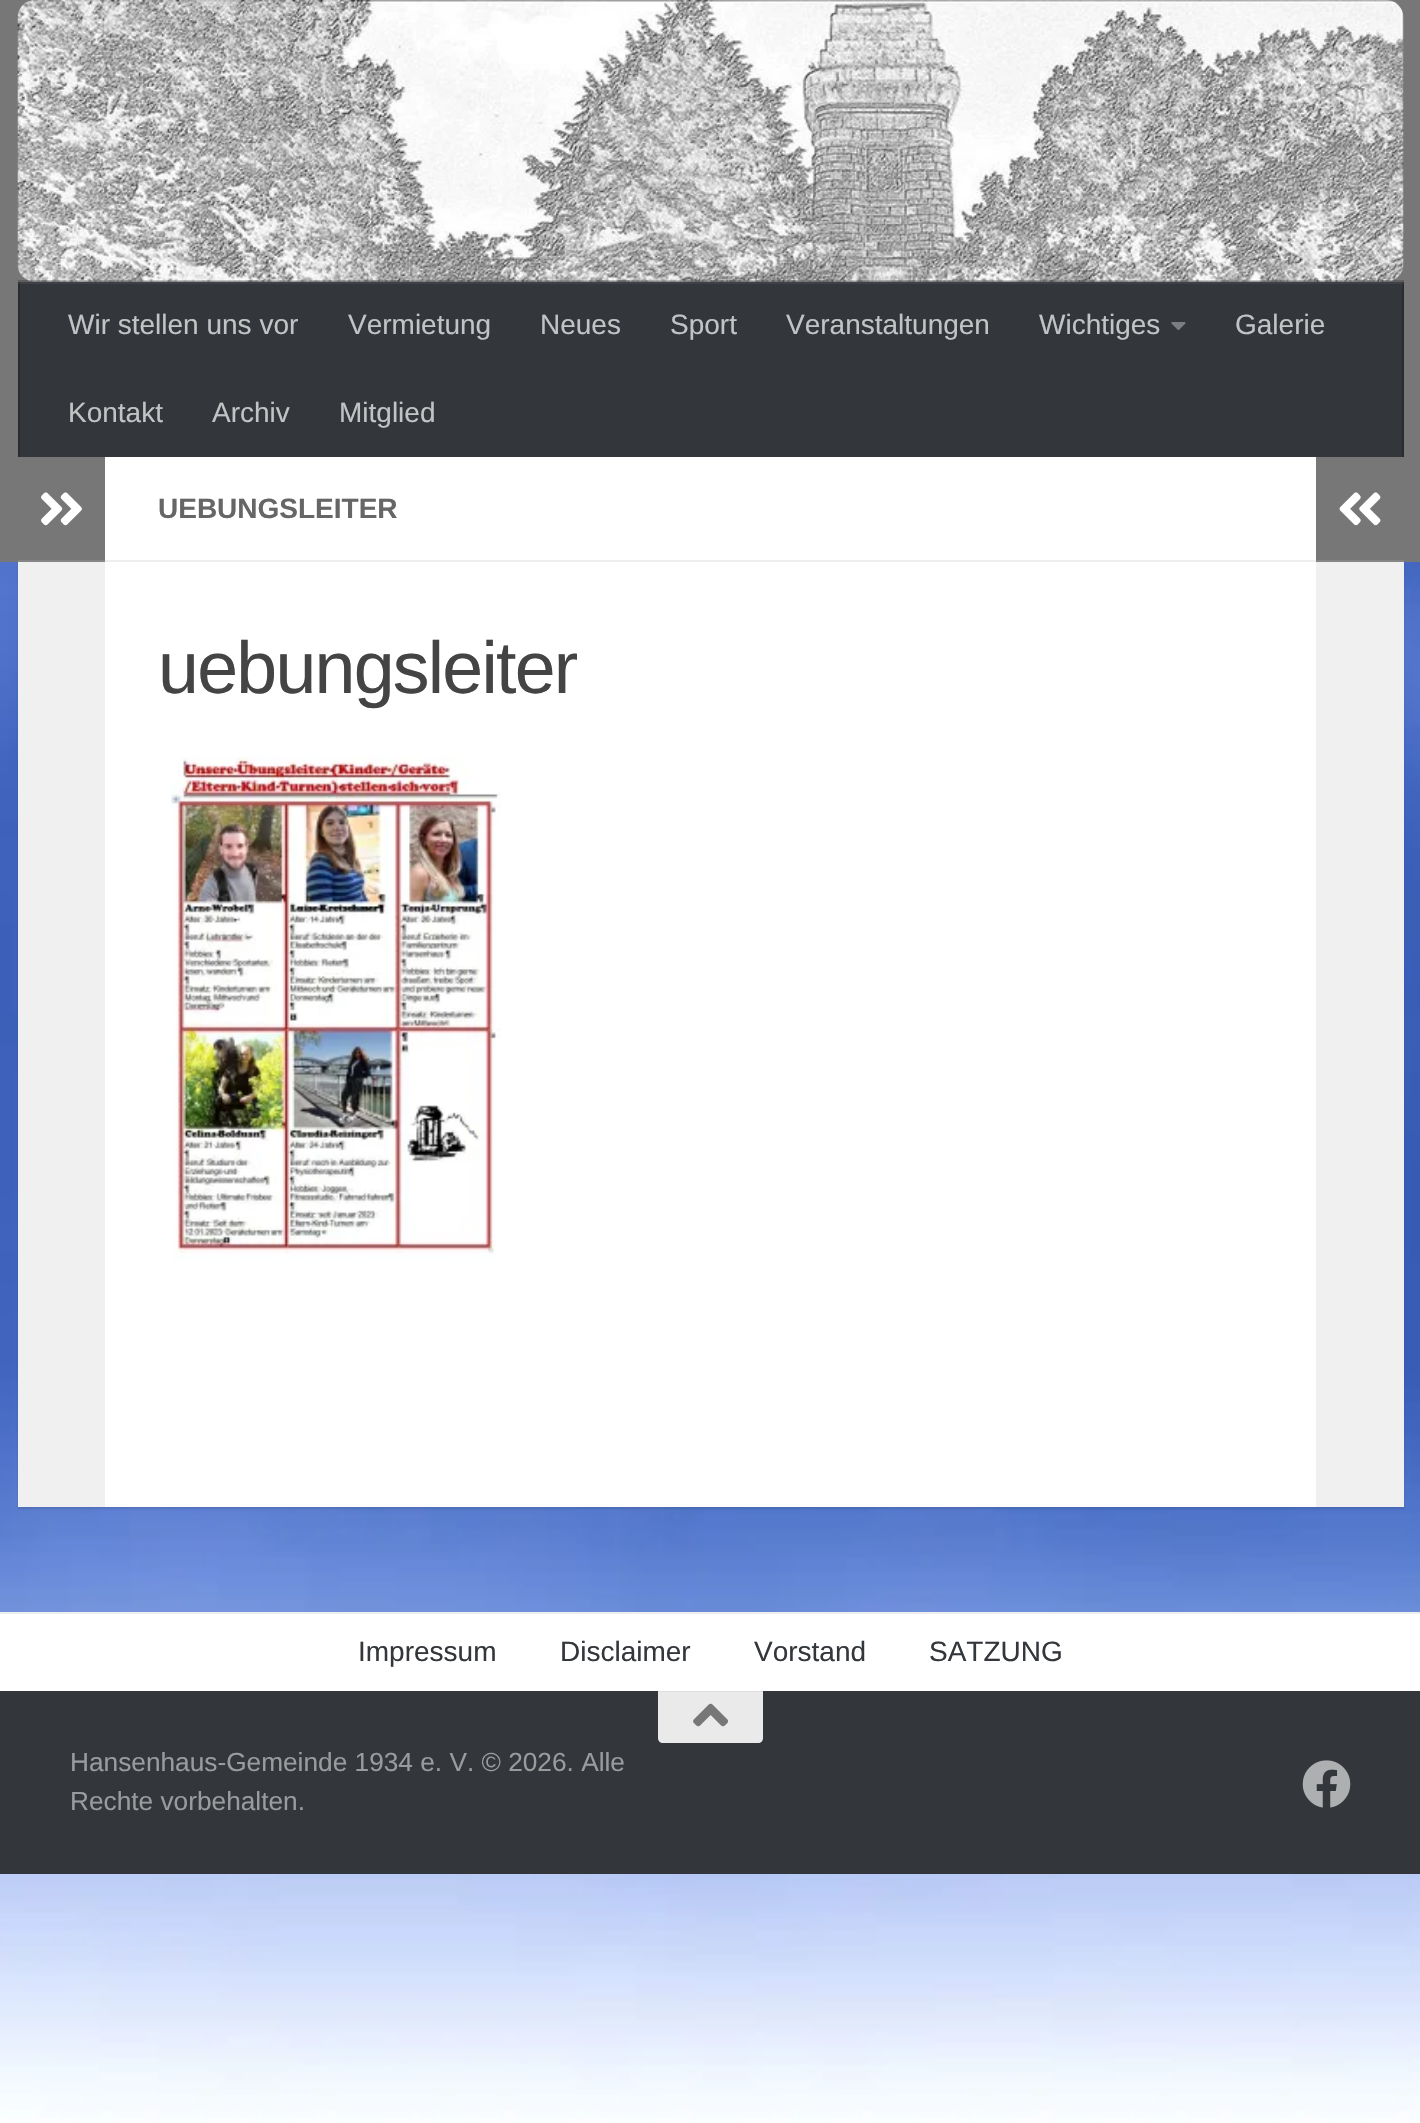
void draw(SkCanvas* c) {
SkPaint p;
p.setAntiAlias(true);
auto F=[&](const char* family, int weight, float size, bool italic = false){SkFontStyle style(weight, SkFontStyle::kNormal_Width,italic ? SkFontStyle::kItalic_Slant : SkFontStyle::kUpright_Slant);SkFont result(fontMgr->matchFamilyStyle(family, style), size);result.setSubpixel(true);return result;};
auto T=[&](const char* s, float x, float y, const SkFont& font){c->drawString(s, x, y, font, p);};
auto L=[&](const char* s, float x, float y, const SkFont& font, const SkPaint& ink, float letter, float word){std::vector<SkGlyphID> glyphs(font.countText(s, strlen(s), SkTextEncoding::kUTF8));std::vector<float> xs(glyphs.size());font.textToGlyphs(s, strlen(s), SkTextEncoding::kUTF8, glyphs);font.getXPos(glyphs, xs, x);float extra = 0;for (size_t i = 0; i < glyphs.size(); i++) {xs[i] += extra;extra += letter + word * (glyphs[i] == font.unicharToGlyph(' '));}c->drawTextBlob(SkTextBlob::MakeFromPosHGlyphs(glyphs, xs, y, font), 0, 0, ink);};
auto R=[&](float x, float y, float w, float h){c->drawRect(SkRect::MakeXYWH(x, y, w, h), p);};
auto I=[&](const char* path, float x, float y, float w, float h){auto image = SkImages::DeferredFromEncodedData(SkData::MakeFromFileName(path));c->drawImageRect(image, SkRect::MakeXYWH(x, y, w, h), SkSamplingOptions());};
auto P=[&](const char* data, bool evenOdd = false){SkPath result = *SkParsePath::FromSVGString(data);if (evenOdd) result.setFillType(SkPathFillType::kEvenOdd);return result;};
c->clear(0xffffffff);
I("1.png",0,562,1420,1561);
p.setColor(0x1a000000);
p.setMaskFilter(SkMaskFilter::MakeBlur(kNormal_SkBlurStyle, 1));
c->drawRect(SkRect::MakeXYWH(18,459,1386,1050),p);
p.setMaskFilter(nullptr);
p.setColor(0xff777777);
R(0,0,1420,562);
I("2.png",17,0,1387,282);
p.setColor(0x33000000);
c->drawPath(P("M18 280v2h1386v173v-175z"),p);
p.setColor(0xff33363b);
R(20,282,1382,175);
p.setColor(0xff292b2f);
R(1402,282,2,175);
R(18,282,2,175);
p.setColor(0x0dffffff);
R(18,282,1386,2);
auto f1 = F("Liberation Sans",400,28);
p.setColor(0xffc2c3c4);
T("Wir stellen uns vor",68,334,f1);
T("Vermietung",348,334,f1);
T("Neues",540,334,f1);
T("Sport",670,334,f1);
T("Veranstaltungen",786,334,f1);
T("Wichtiges",1039,334,f1);
I("3.png",1171,322,15,8);
T("Galerie",1235,334,f1);
T("Kontakt",68,422,f1);
T("Archiv",212,422,f1);
T("Mitglied",339,422,f1);
p.setColor(0xffffffff);
R(105,457,1211,1050);
p.setColor(0xfff0f0f0);
R(18,562,87,945);
p.setColor(0xff858585);
R(18,560,87,2);
I("4.png",41,492,41,34);
p.setColor(0xffeeeeee);
R(105,560,1211,2);
auto f2 = F("Liberation Sans",700,28);
p.setColor(0xff666666);
T("UEBUNGSLEITER",158,518,f2);
auto f3 = F("Liberation Sans",400,73.5);
p.setColor(0xff444444);
L("uebungsleiter",158,693,f3,p,-1.75,0);
I("5.png",171,756,330,505);
p.setColor(0xff858585);
R(1316,560,88,2);
I("6.png",1339,492,42,34);
p.setColor(0xfff0f0f0);
R(1316,562,88,945);
p.setColor(0xffffffff);
R(0,1614,1420,77);
p.setColor(0xffeeeeee);
R(0,1612,1420,2);
p.setColor(0xff33363b);
T("Impressum",358,1661,f1);
T("Disclaimer",560,1661,f1);
T("Vorstand",754,1661,f1);
T("SATZUNG",929,1661,f1);
R(0,1691,1420,183);
p.setColor(0xffeaeaea);
c->drawPath(P("M658 1691h105v47c0 3-2 5-5 5h-95c-3 0-5-2-5-5z"),p);
p.setColor(0xffdedede);
R(658,1691,105,1);
I("7.png",693,1703,36,24);
auto f4 = F("Liberation Sans",400,26.25);
p.setColor(0xff999b9d);
T("Hansenhaus-Gemeinde 1934 e. V. © 2026. Alle",70,1771,f4);
T("Rechte vorbehalten.",70,1810,f4);
I("8.png",1302,1760,49,48);
}
